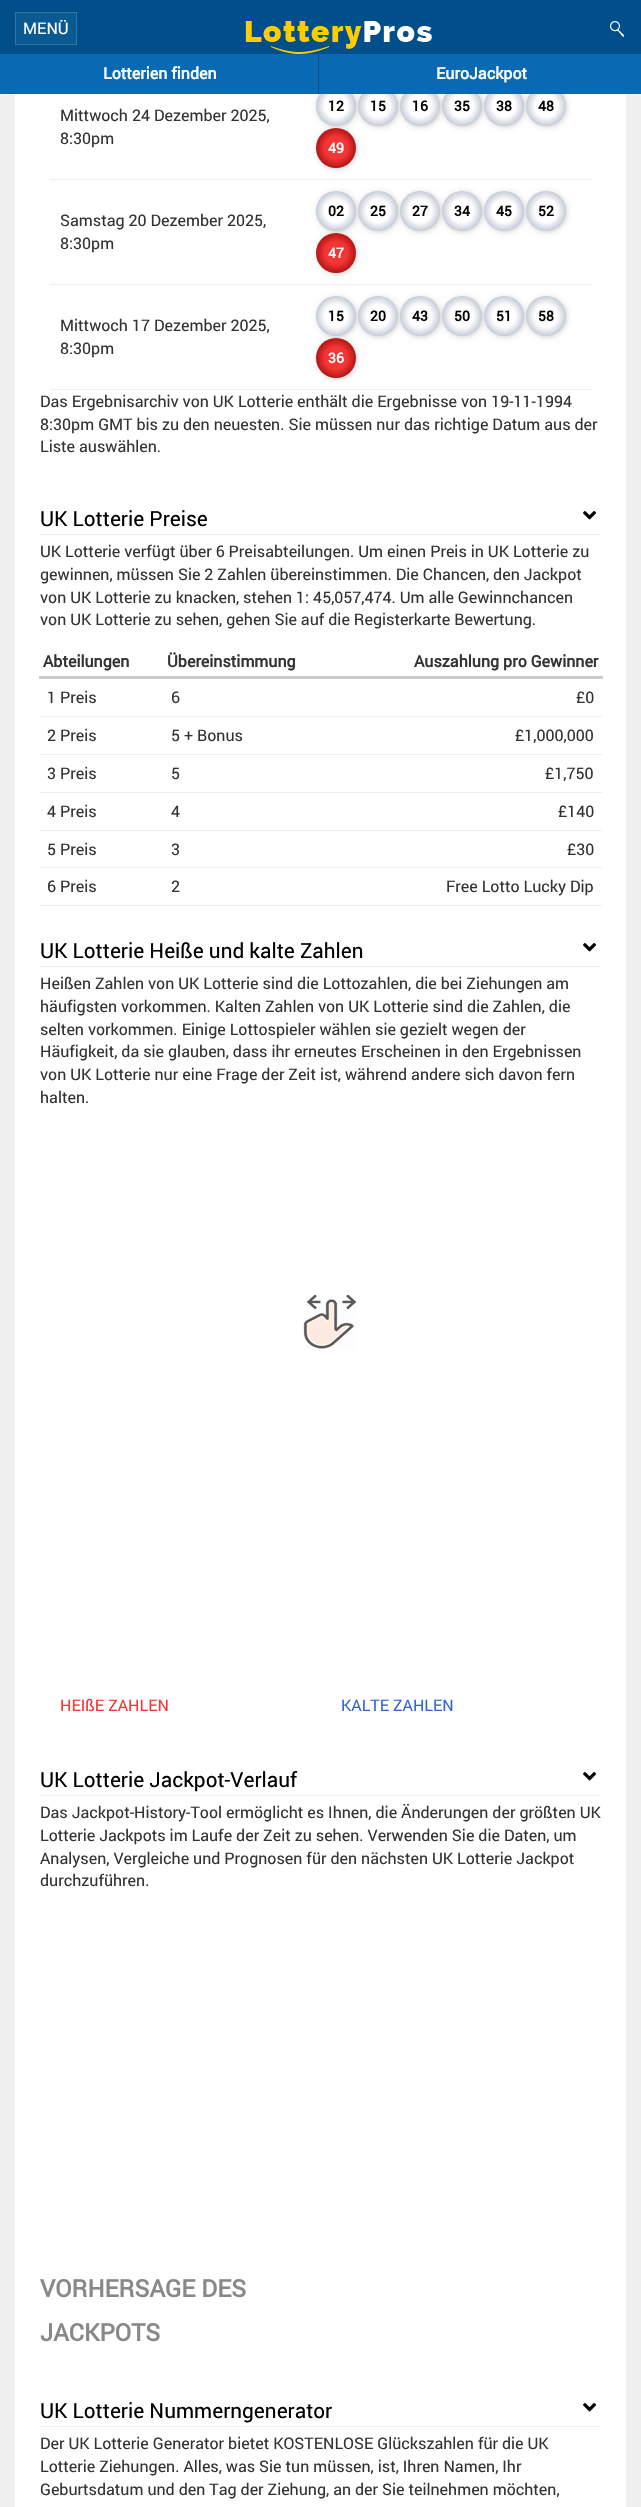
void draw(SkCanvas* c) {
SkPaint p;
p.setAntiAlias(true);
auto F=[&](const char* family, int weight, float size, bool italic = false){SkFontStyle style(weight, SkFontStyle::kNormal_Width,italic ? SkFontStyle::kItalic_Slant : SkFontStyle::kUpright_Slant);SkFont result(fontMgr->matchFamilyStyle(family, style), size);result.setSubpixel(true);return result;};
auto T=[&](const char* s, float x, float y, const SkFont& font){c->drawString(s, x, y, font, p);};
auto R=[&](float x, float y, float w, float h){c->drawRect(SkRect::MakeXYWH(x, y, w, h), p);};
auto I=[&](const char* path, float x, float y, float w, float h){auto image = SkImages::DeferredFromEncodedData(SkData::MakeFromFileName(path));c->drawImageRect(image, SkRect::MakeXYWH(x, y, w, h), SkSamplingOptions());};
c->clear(0xfff0f0f0);
p.setColor(0xff004f8a);
R(0,0,641,54);
p.setColor(0xff0a5a91);
c->drawRect(SkRect::MakeXYWH(15.5,12.5,61,32),p);
p.setStroke(true);
p.setStrokeWidth(1);
p.setColor(0xff3674a2);
c->drawRect(SkRect::MakeXYWH(15.5,12.5,61,32),p);
auto f1 = F("Roboto",400,16);
p.setStroke(false);
p.setColor(0xffffffff);
T("MENÜ",23,34,f1);
I("1.png",245,21,187,33);
I("2.png",610,21,14,16);
R(15,94,611,2413);
p.setColor(0xffaaaaaa);
p.setMaskFilter(SkMaskFilter::MakeBlur(kNormal_SkBlurStyle, 3.5));
c->drawRoundRect(SkRect::MakeXYWH(319,89,36,36),18,18,p);
p.setMaskFilter(nullptr);
{
const SkColor colors[] = {0xffffffff,0xffa3aec1};
const float stops[] = {.4,.9};
p.setShader(SkGradientShader::MakeRadial({336,106}, 28, colors, stops, 2, SkTileMode::kClamp));
p.setAlpha(255);
}
c->drawCircle(336,106,20,p);
p.setShader(nullptr);
p.setColor(0xffaaaaaa);
p.setMaskFilter(SkMaskFilter::MakeBlur(kNormal_SkBlurStyle, 3.5));
c->drawRoundRect(SkRect::MakeXYWH(361,89,36,36),18,18,p);
p.setMaskFilter(nullptr);
{
const SkColor colors[] = {0xffffffff,0xffa3aec1};
const float stops[] = {.4,.9};
p.setShader(SkGradientShader::MakeRadial({378,106}, 28, colors, stops, 2, SkTileMode::kClamp));
p.setAlpha(255);
}
c->drawCircle(378,106,20,p);
p.setShader(nullptr);
p.setColor(0xffaaaaaa);
p.setMaskFilter(SkMaskFilter::MakeBlur(kNormal_SkBlurStyle, 3.5));
c->drawRoundRect(SkRect::MakeXYWH(403,89,36,36),18,18,p);
p.setMaskFilter(nullptr);
{
const SkColor colors[] = {0xffffffff,0xffa3aec1};
const float stops[] = {.4,.9};
p.setShader(SkGradientShader::MakeRadial({420,106}, 28, colors, stops, 2, SkTileMode::kClamp));
p.setAlpha(255);
}
c->drawCircle(420,106,20,p);
p.setShader(nullptr);
p.setColor(0xffaaaaaa);
p.setMaskFilter(SkMaskFilter::MakeBlur(kNormal_SkBlurStyle, 3.5));
c->drawRoundRect(SkRect::MakeXYWH(445,89,36,36),18,18,p);
p.setMaskFilter(nullptr);
{
const SkColor colors[] = {0xffffffff,0xffa3aec1};
const float stops[] = {.4,.9};
p.setShader(SkGradientShader::MakeRadial({462,106}, 28, colors, stops, 2, SkTileMode::kClamp));
p.setAlpha(255);
}
c->drawCircle(462,106,20,p);
p.setShader(nullptr);
p.setColor(0xffaaaaaa);
p.setMaskFilter(SkMaskFilter::MakeBlur(kNormal_SkBlurStyle, 3.5));
c->drawRoundRect(SkRect::MakeXYWH(487,89,36,36),18,18,p);
p.setMaskFilter(nullptr);
{
const SkColor colors[] = {0xffffffff,0xffa3aec1};
const float stops[] = {.4,.9};
p.setShader(SkGradientShader::MakeRadial({504,106}, 28, colors, stops, 2, SkTileMode::kClamp));
p.setAlpha(255);
}
c->drawCircle(504,106,20,p);
p.setShader(nullptr);
p.setColor(0xffaaaaaa);
p.setMaskFilter(SkMaskFilter::MakeBlur(kNormal_SkBlurStyle, 3.5));
c->drawRoundRect(SkRect::MakeXYWH(529,89,36,36),18,18,p);
p.setMaskFilter(nullptr);
{
const SkColor colors[] = {0xffffffff,0xffa3aec1};
const float stops[] = {.4,.9};
p.setShader(SkGradientShader::MakeRadial({546,106}, 28, colors, stops, 2, SkTileMode::kClamp));
p.setAlpha(255);
}
c->drawCircle(546,106,20,p);
p.setShader(nullptr);
p.setColor(0xff096ab3);
R(0,54,641,40);
p.setColor(0xff004f8a);
R(318,54,1,40);
auto f2 = F("Roboto",700,16);
p.setColor(0xffffffff);
T("Lotterien finden",103,79,f2);
T("EuroJackpot",436,79,f2);
p.setColor(0xffeeeeee);
R(50,179,542,1);
p.setColor(0xff333333);
T("Mittwoch 24 Dezember 2025,",60,121,f1);
T("8:30pm",60,144,f1);
auto f3 = F("Roboto",700,14);
p.setColor(0xff000000);
T("12",328,111,f3);
T("15",370,111,f3);
T("16",412,111,f3);
T("35",454,111,f3);
T("38",496,111,f3);
T("48",538,111,f3);
p.setColor(0xffaaaaaa);
p.setMaskFilter(SkMaskFilter::MakeBlur(kNormal_SkBlurStyle, 3.5));
c->drawRoundRect(SkRect::MakeXYWH(319,131,36,36),18,18,p);
p.setMaskFilter(nullptr);
{
const SkColor colors[] = {0xfff43535,0xff8b0303};
const float stops[] = {.4,.9};
p.setShader(SkGradientShader::MakeRadial({336,148}, 28, colors, stops, 2, SkTileMode::kClamp));
p.setAlpha(255);
}
c->drawCircle(336,148,20,p);
p.setShader(nullptr);
p.setColor(0xffffffff);
T("49",328,153,f3);
p.setColor(0xffeeeeee);
R(50,284,542,1);
p.setColor(0xff333333);
T("Samstag 20 Dezember 2025,",60,226,f1);
T("8:30pm",60,249,f1);
p.setColor(0xffaaaaaa);
p.setMaskFilter(SkMaskFilter::MakeBlur(kNormal_SkBlurStyle, 3.5));
c->drawRoundRect(SkRect::MakeXYWH(319,194,36,36),18,18,p);
p.setMaskFilter(nullptr);
{
const SkColor colors[] = {0xffffffff,0xffa3aec1};
const float stops[] = {.4,.9};
p.setShader(SkGradientShader::MakeRadial({336,211}, 28, colors, stops, 2, SkTileMode::kClamp));
p.setAlpha(255);
}
c->drawCircle(336,211,20,p);
p.setShader(nullptr);
p.setColor(0xff000000);
T("02",328,216,f3);
p.setColor(0xffaaaaaa);
p.setMaskFilter(SkMaskFilter::MakeBlur(kNormal_SkBlurStyle, 3.5));
c->drawRoundRect(SkRect::MakeXYWH(361,194,36,36),18,18,p);
p.setMaskFilter(nullptr);
{
const SkColor colors[] = {0xffffffff,0xffa3aec1};
const float stops[] = {.4,.9};
p.setShader(SkGradientShader::MakeRadial({378,211}, 28, colors, stops, 2, SkTileMode::kClamp));
p.setAlpha(255);
}
c->drawCircle(378,211,20,p);
p.setShader(nullptr);
p.setColor(0xff000000);
T("25",370,216,f3);
p.setColor(0xffaaaaaa);
p.setMaskFilter(SkMaskFilter::MakeBlur(kNormal_SkBlurStyle, 3.5));
c->drawRoundRect(SkRect::MakeXYWH(403,194,36,36),18,18,p);
p.setMaskFilter(nullptr);
{
const SkColor colors[] = {0xffffffff,0xffa3aec1};
const float stops[] = {.4,.9};
p.setShader(SkGradientShader::MakeRadial({420,211}, 28, colors, stops, 2, SkTileMode::kClamp));
p.setAlpha(255);
}
c->drawCircle(420,211,20,p);
p.setShader(nullptr);
p.setColor(0xff000000);
T("27",412,216,f3);
p.setColor(0xffaaaaaa);
p.setMaskFilter(SkMaskFilter::MakeBlur(kNormal_SkBlurStyle, 3.5));
c->drawRoundRect(SkRect::MakeXYWH(445,194,36,36),18,18,p);
p.setMaskFilter(nullptr);
{
const SkColor colors[] = {0xffffffff,0xffa3aec1};
const float stops[] = {.4,.9};
p.setShader(SkGradientShader::MakeRadial({462,211}, 28, colors, stops, 2, SkTileMode::kClamp));
p.setAlpha(255);
}
c->drawCircle(462,211,20,p);
p.setShader(nullptr);
p.setColor(0xff000000);
T("34",454,216,f3);
p.setColor(0xffaaaaaa);
p.setMaskFilter(SkMaskFilter::MakeBlur(kNormal_SkBlurStyle, 3.5));
c->drawRoundRect(SkRect::MakeXYWH(487,194,36,36),18,18,p);
p.setMaskFilter(nullptr);
{
const SkColor colors[] = {0xffffffff,0xffa3aec1};
const float stops[] = {.4,.9};
p.setShader(SkGradientShader::MakeRadial({504,211}, 28, colors, stops, 2, SkTileMode::kClamp));
p.setAlpha(255);
}
c->drawCircle(504,211,20,p);
p.setShader(nullptr);
p.setColor(0xff000000);
T("45",496,216,f3);
p.setColor(0xffaaaaaa);
p.setMaskFilter(SkMaskFilter::MakeBlur(kNormal_SkBlurStyle, 3.5));
c->drawRoundRect(SkRect::MakeXYWH(529,194,36,36),18,18,p);
p.setMaskFilter(nullptr);
{
const SkColor colors[] = {0xffffffff,0xffa3aec1};
const float stops[] = {.4,.9};
p.setShader(SkGradientShader::MakeRadial({546,211}, 28, colors, stops, 2, SkTileMode::kClamp));
p.setAlpha(255);
}
c->drawCircle(546,211,20,p);
p.setShader(nullptr);
p.setColor(0xff000000);
T("52",538,216,f3);
p.setColor(0xffaaaaaa);
p.setMaskFilter(SkMaskFilter::MakeBlur(kNormal_SkBlurStyle, 3.5));
c->drawRoundRect(SkRect::MakeXYWH(319,236,36,36),18,18,p);
p.setMaskFilter(nullptr);
{
const SkColor colors[] = {0xfff43535,0xff8b0303};
const float stops[] = {.4,.9};
p.setShader(SkGradientShader::MakeRadial({336,253}, 28, colors, stops, 2, SkTileMode::kClamp));
p.setAlpha(255);
}
c->drawCircle(336,253,20,p);
p.setShader(nullptr);
p.setColor(0xffffffff);
T("47",328,258,f3);
p.setColor(0xffeeeeee);
R(50,389,542,1);
p.setColor(0xff333333);
T("Mittwoch 17 Dezember 2025,",60,331,f1);
T("8:30pm",60,354,f1);
p.setColor(0xffaaaaaa);
p.setMaskFilter(SkMaskFilter::MakeBlur(kNormal_SkBlurStyle, 3.5));
c->drawRoundRect(SkRect::MakeXYWH(319,299,36,36),18,18,p);
p.setMaskFilter(nullptr);
{
const SkColor colors[] = {0xffffffff,0xffa3aec1};
const float stops[] = {.4,.9};
p.setShader(SkGradientShader::MakeRadial({336,316}, 28, colors, stops, 2, SkTileMode::kClamp));
p.setAlpha(255);
}
c->drawCircle(336,316,20,p);
p.setShader(nullptr);
p.setColor(0xff000000);
T("15",328,321,f3);
p.setColor(0xffaaaaaa);
p.setMaskFilter(SkMaskFilter::MakeBlur(kNormal_SkBlurStyle, 3.5));
c->drawRoundRect(SkRect::MakeXYWH(361,299,36,36),18,18,p);
p.setMaskFilter(nullptr);
{
const SkColor colors[] = {0xffffffff,0xffa3aec1};
const float stops[] = {.4,.9};
p.setShader(SkGradientShader::MakeRadial({378,316}, 28, colors, stops, 2, SkTileMode::kClamp));
p.setAlpha(255);
}
c->drawCircle(378,316,20,p);
p.setShader(nullptr);
p.setColor(0xff000000);
T("20",370,321,f3);
p.setColor(0xffaaaaaa);
p.setMaskFilter(SkMaskFilter::MakeBlur(kNormal_SkBlurStyle, 3.5));
c->drawRoundRect(SkRect::MakeXYWH(403,299,36,36),18,18,p);
p.setMaskFilter(nullptr);
{
const SkColor colors[] = {0xffffffff,0xffa3aec1};
const float stops[] = {.4,.9};
p.setShader(SkGradientShader::MakeRadial({420,316}, 28, colors, stops, 2, SkTileMode::kClamp));
p.setAlpha(255);
}
c->drawCircle(420,316,20,p);
p.setShader(nullptr);
p.setColor(0xff000000);
T("43",412,321,f3);
p.setColor(0xffaaaaaa);
p.setMaskFilter(SkMaskFilter::MakeBlur(kNormal_SkBlurStyle, 3.5));
c->drawRoundRect(SkRect::MakeXYWH(445,299,36,36),18,18,p);
p.setMaskFilter(nullptr);
{
const SkColor colors[] = {0xffffffff,0xffa3aec1};
const float stops[] = {.4,.9};
p.setShader(SkGradientShader::MakeRadial({462,316}, 28, colors, stops, 2, SkTileMode::kClamp));
p.setAlpha(255);
}
c->drawCircle(462,316,20,p);
p.setShader(nullptr);
p.setColor(0xff000000);
T("50",454,321,f3);
p.setColor(0xffaaaaaa);
p.setMaskFilter(SkMaskFilter::MakeBlur(kNormal_SkBlurStyle, 3.5));
c->drawRoundRect(SkRect::MakeXYWH(487,299,36,36),18,18,p);
p.setMaskFilter(nullptr);
{
const SkColor colors[] = {0xffffffff,0xffa3aec1};
const float stops[] = {.4,.9};
p.setShader(SkGradientShader::MakeRadial({504,316}, 28, colors, stops, 2, SkTileMode::kClamp));
p.setAlpha(255);
}
c->drawCircle(504,316,20,p);
p.setShader(nullptr);
p.setColor(0xff000000);
T("51",496,321,f3);
p.setColor(0xffaaaaaa);
p.setMaskFilter(SkMaskFilter::MakeBlur(kNormal_SkBlurStyle, 3.5));
c->drawRoundRect(SkRect::MakeXYWH(529,299,36,36),18,18,p);
p.setMaskFilter(nullptr);
{
const SkColor colors[] = {0xffffffff,0xffa3aec1};
const float stops[] = {.4,.9};
p.setShader(SkGradientShader::MakeRadial({546,316}, 28, colors, stops, 2, SkTileMode::kClamp));
p.setAlpha(255);
}
c->drawCircle(546,316,20,p);
p.setShader(nullptr);
p.setColor(0xff000000);
T("58",538,321,f3);
p.setColor(0xffaaaaaa);
p.setMaskFilter(SkMaskFilter::MakeBlur(kNormal_SkBlurStyle, 3.5));
c->drawRoundRect(SkRect::MakeXYWH(319,341,36,36),18,18,p);
p.setMaskFilter(nullptr);
{
const SkColor colors[] = {0xfff43535,0xff8b0303};
const float stops[] = {.4,.9};
p.setShader(SkGradientShader::MakeRadial({336,358}, 28, colors, stops, 2, SkTileMode::kClamp));
p.setAlpha(255);
}
c->drawCircle(336,358,20,p);
p.setShader(nullptr);
p.setColor(0xffffffff);
T("36",328,363,f3);
p.setColor(0xff333333);
T("Das Ergebnisarchiv von UK Lotterie enthält die Ergebnisse von 19-11-1994",40,407,f1);
T("8:30pm GMT bis zu den neuesten. Sie müssen nur das richtige Datum aus der",40,430,f1);
T("Liste auswählen.",40,452,f1);
p.setColor(0xffeeeeee);
R(40,534,561,1);
auto f4 = F("Roboto",400,20.75);
p.setColor(0xff000000);
T("UK Lotterie Preise",40,526,f4);
I("3.png",583,511,13,9);
p.setColor(0xff333333);
T("UK Lotterie verfügt über 6 Preisabteilungen. Um einen Preis in UK Lotterie zu",40,557,f1);
T("gewinnen, müssen Sie 2 Zahlen übereinstimmen. Die Chancen, den Jackpot",40,580,f1);
T("von UK Lotterie zu knacken, stehen 1: 45,057,474. Um alle Gewinnchancen",40,603,f1);
T("von UK Lotterie zu sehen, gehen Sie auf die Registerkarte Bewertung.",40,625,f1);
p.setColor(0xffcccccc);
R(39,676,564,3);
p.setColor(0xff333333);
T("Abteilungen",43,667,f2);
T("Übereinstimmung",167,667,f2);
T("Auszahlung pro Gewinner",414,667,f2);
p.setColor(0xffeeeeee);
R(40,716,562,1);
p.setColor(0xff333333);
T("1 Preis",47,703,f1);
T("6",171,703,f1);
T("£0",576,703,f1);
p.setColor(0xffeeeeee);
R(40,754,562,1);
p.setColor(0xff333333);
T("2 Preis",47,741,f1);
T("5 + Bonus",171,741,f1);
T("£1,000,000",515,741,f1);
p.setColor(0xffeeeeee);
R(40,792,562,1);
p.setColor(0xff333333);
T("3 Preis",47,779,f1);
T("5",171,779,f1);
T("£1,750",545,779,f1);
p.setColor(0xffeeeeee);
R(40,830,562,1);
p.setColor(0xff333333);
T("4 Preis",47,817,f1);
T("4",171,817,f1);
T("£140",558,817,f1);
p.setColor(0xffeeeeee);
R(40,867,562,1);
p.setColor(0xff333333);
T("5 Preis",47,855,f1);
T("3",171,855,f1);
T("£30",567,855,f1);
p.setColor(0xffeeeeee);
R(40,905,562,1);
p.setColor(0xff333333);
T("6 Preis",47,892,f1);
T("2",171,892,f1);
T("Free Lotto Lucky Dip",446,892,f1);
p.setColor(0xffeeeeee);
R(40,966,561,1);
p.setColor(0xff000000);
T("UK Lotterie Heiße und kalte Zahlen",40,958,f4);
I("3.png",583,943,13,9);
p.setColor(0xff333333);
T("Heißen Zahlen von UK Lotterie sind die Lottozahlen, die bei Ziehungen am",40,989,f1);
T("häufigsten vorkommen. Kalten Zahlen von UK Lotterie sind die Zahlen, die",40,1012,f1);
T("selten vorkommen. Einige Lottospieler wählen sie gezielt wegen der",40,1035,f1);
T("Häufigkeit, da sie glauben, dass ihr erneutes Erscheinen in den Ergebnissen",40,1057,f1);
T("von UK Lotterie nur eine Frage der Zeit ist, während andere sich davon fern",40,1080,f1);
T("halten.",40,1103,f1);
I("4.png",303,1295,53,54);
p.setColor(0xfff43535);
T("HEIßE ZAHLEN",60,1711,f1);
p.setColor(0xff3366cc);
T("KALTE ZAHLEN",341,1711,f1);
p.setColor(0xffeeeeee);
R(40,1795,561,1);
p.setColor(0xff000000);
T("UK Lotterie Jackpot-Verlauf",40,1787,f4);
I("3.png",583,1772,13,9);
p.setColor(0xff333333);
T("Das Jackpot-History-Tool ermöglicht es Ihnen, die Änderungen der größten UK",40,1818,f1);
T("Lotterie Jackpots im Laufe der Zeit zu sehen. Verwenden Sie die Daten, um",40,1841,f1);
T("Analysen, Vergleiche und Prognosen für den nächsten UK Lotterie Jackpot",40,1864,f1);
T("durchzuführen.",40,1886,f1);
auto f5 = F("Roboto",700,24);
p.setColor(0xff888888);
T("VORHERSAGE DES",40,2297,f5);
T("JACKPOTS",40,2341,f5);
p.setColor(0xffeeeeee);
R(40,2426,561,1);
p.setColor(0xff000000);
T("UK Lotterie Nummerngenerator",40,2418,f4);
I("3.png",583,2403,13,9);
p.setColor(0xff333333);
T("Der UK Lotterie Generator bietet KOSTENLOSE Glückszahlen für die UK",40,2449,f1);
T("Lotterie Ziehungen. Alles, was Sie tun müssen, ist, Ihren Namen, Ihr",40,2472,f1);
T("Geburtsdatum und den Tag der Ziehung, an der Sie teilnehmen möchten,",40,2495,f1);
}
